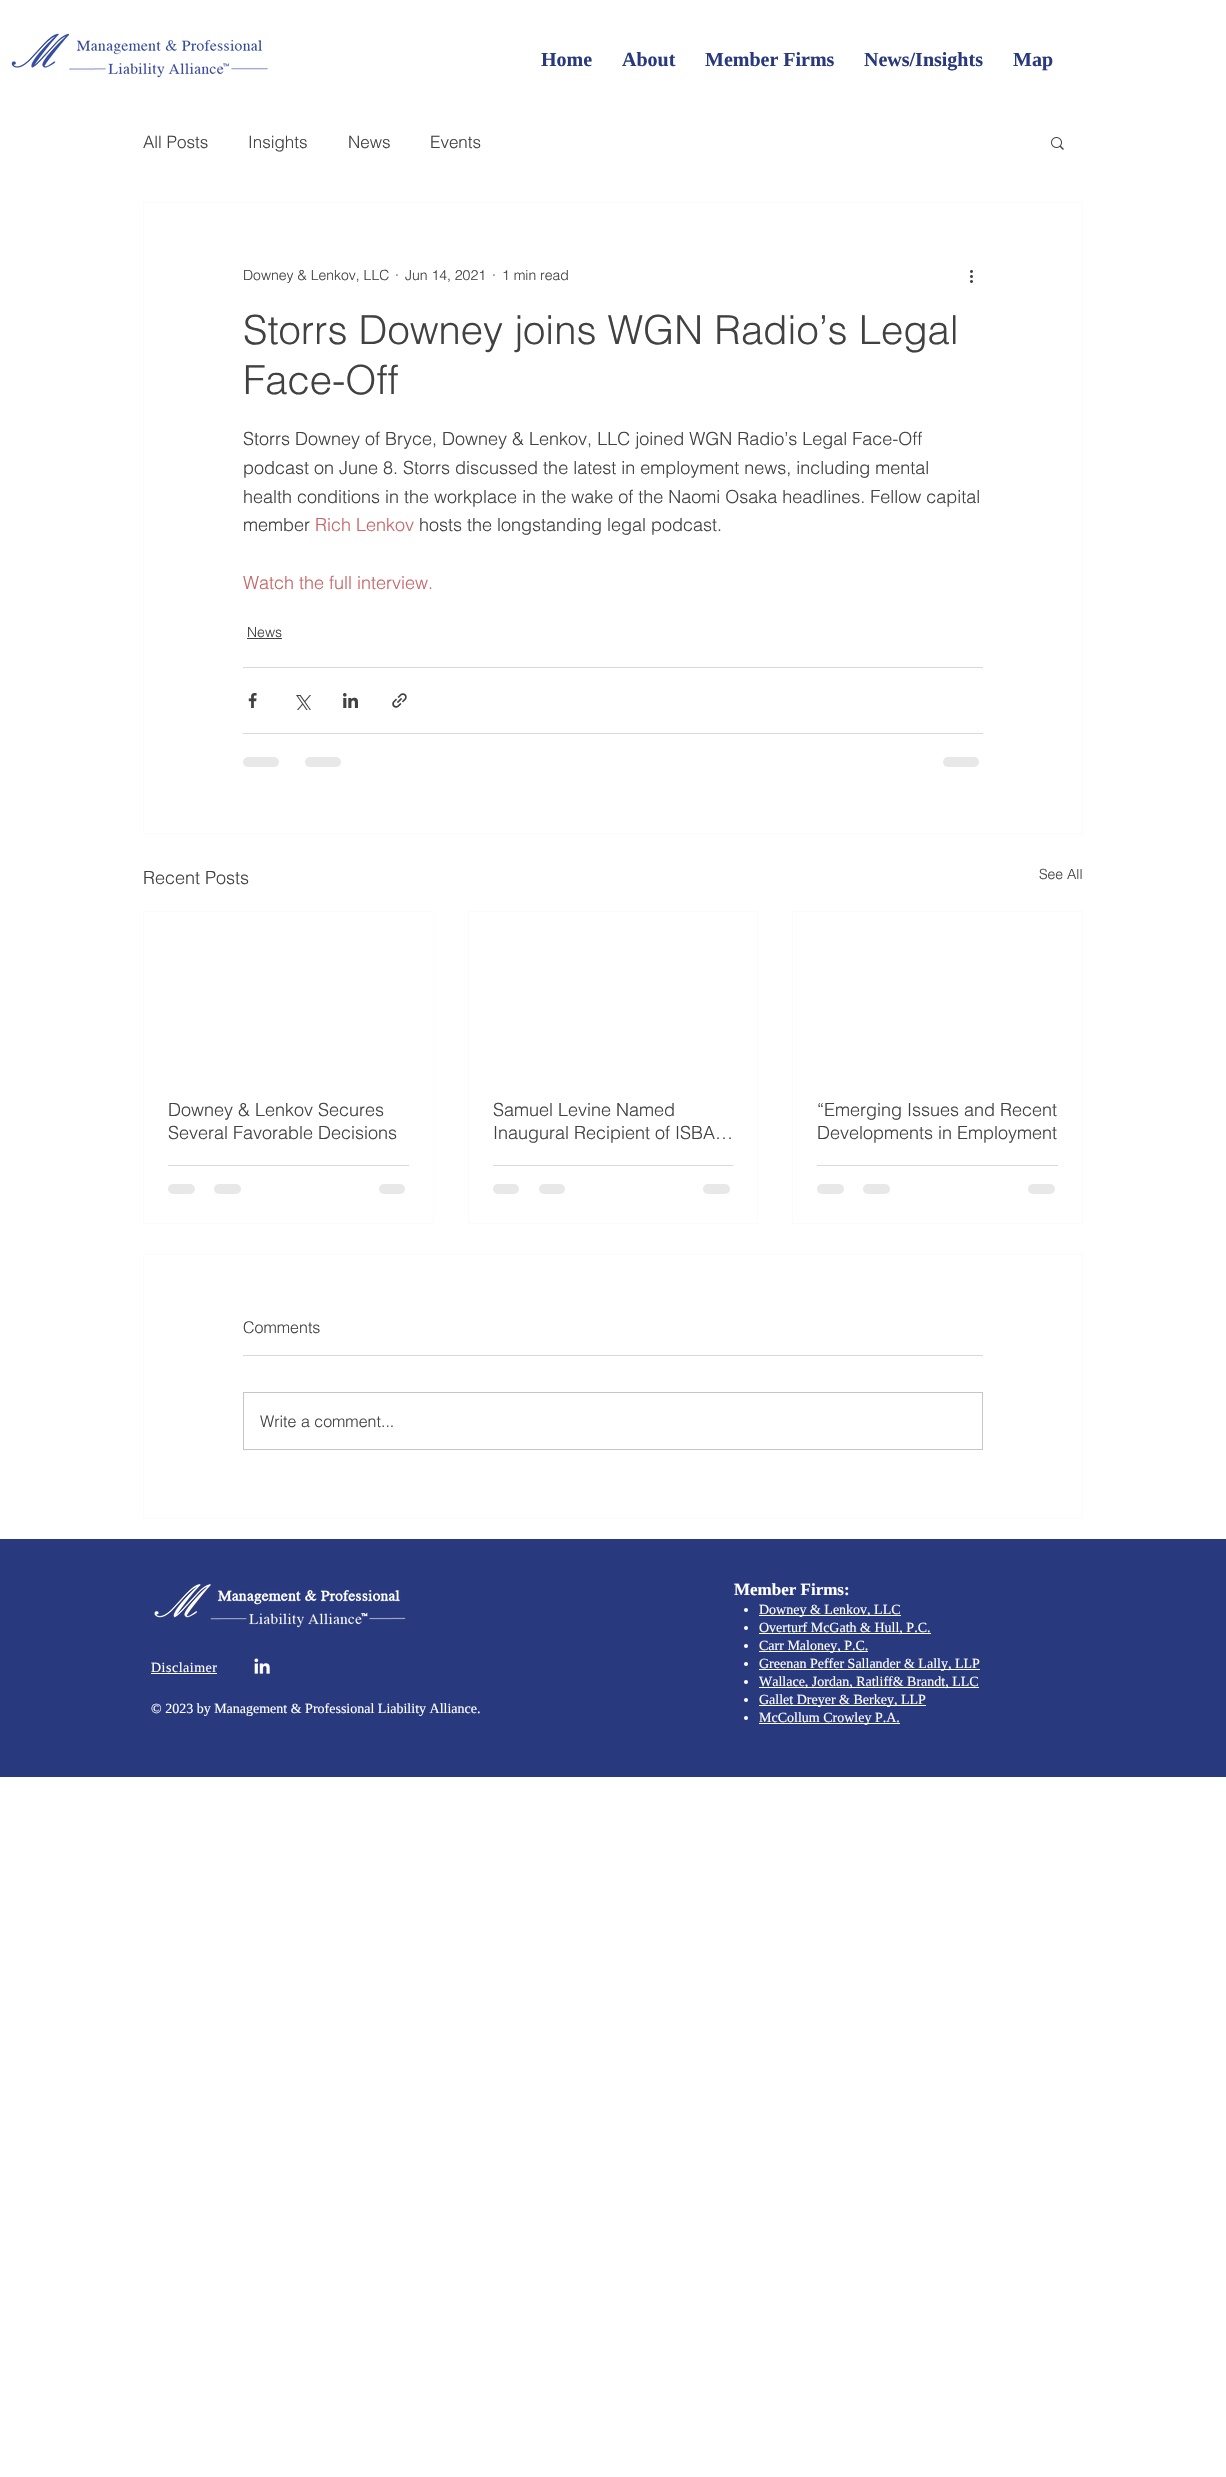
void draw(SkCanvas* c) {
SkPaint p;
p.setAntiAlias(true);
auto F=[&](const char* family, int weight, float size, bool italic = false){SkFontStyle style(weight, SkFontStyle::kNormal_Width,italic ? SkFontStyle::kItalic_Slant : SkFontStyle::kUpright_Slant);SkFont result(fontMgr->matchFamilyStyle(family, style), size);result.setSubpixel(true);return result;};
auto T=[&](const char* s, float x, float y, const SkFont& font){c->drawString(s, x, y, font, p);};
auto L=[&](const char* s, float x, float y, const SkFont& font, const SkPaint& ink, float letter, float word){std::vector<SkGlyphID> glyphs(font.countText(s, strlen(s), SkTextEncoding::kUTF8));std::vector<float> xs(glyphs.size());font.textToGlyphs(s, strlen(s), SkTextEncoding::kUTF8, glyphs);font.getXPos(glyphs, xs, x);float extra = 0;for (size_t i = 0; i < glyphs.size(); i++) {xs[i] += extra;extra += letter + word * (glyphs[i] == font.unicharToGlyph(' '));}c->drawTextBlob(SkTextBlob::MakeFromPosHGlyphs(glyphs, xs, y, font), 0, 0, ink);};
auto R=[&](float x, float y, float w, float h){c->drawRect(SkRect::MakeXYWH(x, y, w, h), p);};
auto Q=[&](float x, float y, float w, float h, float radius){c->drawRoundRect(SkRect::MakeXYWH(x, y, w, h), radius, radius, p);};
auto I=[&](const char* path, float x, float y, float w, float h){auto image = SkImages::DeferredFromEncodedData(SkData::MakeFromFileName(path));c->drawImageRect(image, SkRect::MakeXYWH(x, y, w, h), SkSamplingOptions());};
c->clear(0xffffffff);
I("1.png",11,33,257,45);
auto f1 = F("Liberation Serif",700,20);
p.setColor(0xff29397d);
T("Home",541,66,f1);
T("About",622,66,f1);
T("Member Firms",705,66,f1);
T("News/Insights",864,66,f1);
T("Map",1013,66,f1);
auto f2 = F("helvetica",300,17);
p.setColor(0xff414141);
T("All Posts",143,148,f2);
T("Insights",248,148,f2);
T("News",348,148,f2);
T("Events",430,148,f2);
I("2.png",1051,137,13,13);
p.setStroke(true);
p.setStrokeWidth(1);
p.setColor(0xfffbfbfb);
c->drawRect(SkRect::MakeXYWH(143.5,202.5,939,631),p);
auto f3 = F("helvetica",300,14);
p.setStroke(false);
p.setColor(0xff414141);
T("Downey & Lenkov, LLC",243,280,f3);
T("·",395,280,f3);
T("Jun 14, 2021",405,280,f3);
T("·",492,280,f3);
T("1 min read",502,280,f3);
I("3.png",970,270,3,13);
auto f4 = F("helvetica",300,40);
T("Storrs Downey joins WGN Radio’s Legal",243,344,f4);
T("Face-Off",243,394,f4);
auto f5 = F("helvetica",300,18);
T("Storrs Downey of Bryce, Downey & Lenkov, LLC joined WGN Radio’s Legal Face-Off",243,445,f5);
T("podcast on June 8. Storrs discussed the latest in employment news, including mental",243,474,f5);
T("health conditions in the workplace in the wake of the Naomi Osaka headlines. Fellow capital",243,503,f5);
T("member",243,531,f5);
p.setColor(0xffc86567);
T("Rich Lenkov",315,531,f5);
p.setColor(0xff414141);
T("hosts the longstanding legal podcast.",419,531,f5);
p.setColor(0xffc86567);
T("Watch the full interview.",243,589,f5);
p.setColor(0xff414141);
T("News",247,637,f3);
R(247,638,35,1);
p.setColor(0xffd9d9d9);
R(243,667,740,1);
I("4.png",248,693,9,15);
I("5.png",296,695,15,15);
I("6.png",343,693,15,15);
I("7.png",392,693,15,15);
R(243,733,740,1);
p.setColor(0xffe8e8e8);
Q(243,757,36,10,5);
Q(305,757,36,10,5);
Q(943,757,36,10,5);
p.setColor(0xff414141);
T("Recent Posts",143,884,f5);
T("See All",1039,879,f3);
p.setStroke(true);
p.setColor(0xfffbfbfb);
c->drawRect(SkRect::MakeXYWH(143.5,911.5,290,312),p);
p.setStroke(false);
p.setColor(0xff414141);
T("Downey & Lenkov Secures",168,1116,f5);
T("Several Favorable Decisions",168,1139,f5);
p.setColor(0xffd9d9d9);
R(168,1165,241,1);
p.setColor(0xffe8e8e8);
Q(168,1184,27,10,5);
Q(214,1184,27,10,5);
Q(379,1184,26,10,5);
p.setStroke(true);
p.setColor(0xfffbfbfb);
c->drawRect(SkRect::MakeXYWH(468.5,911.5,289,312),p);
p.setStroke(false);
p.setColor(0xff414141);
T("Samuel Levine Named",493,1116,f5);
T("Inaugural Recipient of ISBA…",493,1139,f5);
p.setColor(0xffd9d9d9);
R(493,1165,240,1);
p.setColor(0xffe8e8e8);
Q(493,1184,26,10,5);
Q(539,1184,26,10,5);
Q(703,1184,27,10,5);
p.setStroke(true);
p.setColor(0xfffbfbfb);
c->drawRect(SkRect::MakeXYWH(792.5,911.5,290,312),p);
p.setStroke(false);
p.setColor(0xff414141);
T("“Emerging Issues and Recent",817,1116,f5);
T("Developments in Employment",817,1139,f5);
p.setColor(0xffd9d9d9);
R(817,1165,241,1);
p.setColor(0xffe8e8e8);
Q(817,1184,27,10,5);
Q(863,1184,27,10,5);
Q(1028,1184,27,10,5);
p.setStroke(true);
p.setColor(0xfffbfbfb);
c->drawRect(SkRect::MakeXYWH(143.5,1254.5,939,264),p);
auto f6 = F("helvetica",300,16);
p.setStroke(false);
p.setColor(0xff414141);
T("Comments",243,1333,f6);
p.setColor(0xffd9d9d9);
R(243,1355,740,1);
p.setStroke(true);
p.setColor(0xffc6c6c6);
c->drawRect(SkRect::MakeXYWH(243.5,1392.5,739,57),p);
p.setStroke(false);
p.setColor(0xff414141);
T("Write a comment...",260,1427,f6);
p.setColor(0xff29397d);
R(0,1539,1226,238);
I("8.png",154,1584,252,44);
auto f7 = F("Liberation Serif",700,17);
p.setColor(0xffffffff);
T("Member Firms:",734,1595,f7);
c->drawCircle(746,1610,2,p);
R(759,1615,142,1);
auto f8 = F("Liberation Serif",400,14);
T("Downey & Lenkov, LLC",759,1614,f8);
c->drawCircle(746,1628,2,p);
R(759,1633,172,1);
T("Overturf McGath & Hull, P.C.",759,1632,f8);
c->drawCircle(746,1646,2,p);
R(759,1651,109,1);
T("Carr Maloney, P.C.",759,1650,f8);
c->drawCircle(746,1664,2,p);
R(759,1669,221,1);
T("Greenan Peffer Sallander & Lally, LLP",759,1668,f8);
c->drawCircle(746,1682,2,p);
R(759,1687,220,1);
T("Wallace, Jordan, Ratliff& Brandt, LLC",759,1686,f8);
c->drawCircle(746,1700,2,p);
R(759,1705,167,1);
T("Gallet Dreyer & Berkey, LLP",759,1704,f8);
c->drawCircle(746,1718,2,p);
R(759,1723,141,1);
T("McCollum Crowley P.A.",759,1722,f8);
L("Disclaimer",151,1672,f8,p,.5,0);
R(151,1673,66,1);
I("9.png",254,1658,16,16);
T("© 2023 by Management & Professional Liability Alliance.",151,1713,f8);
}
